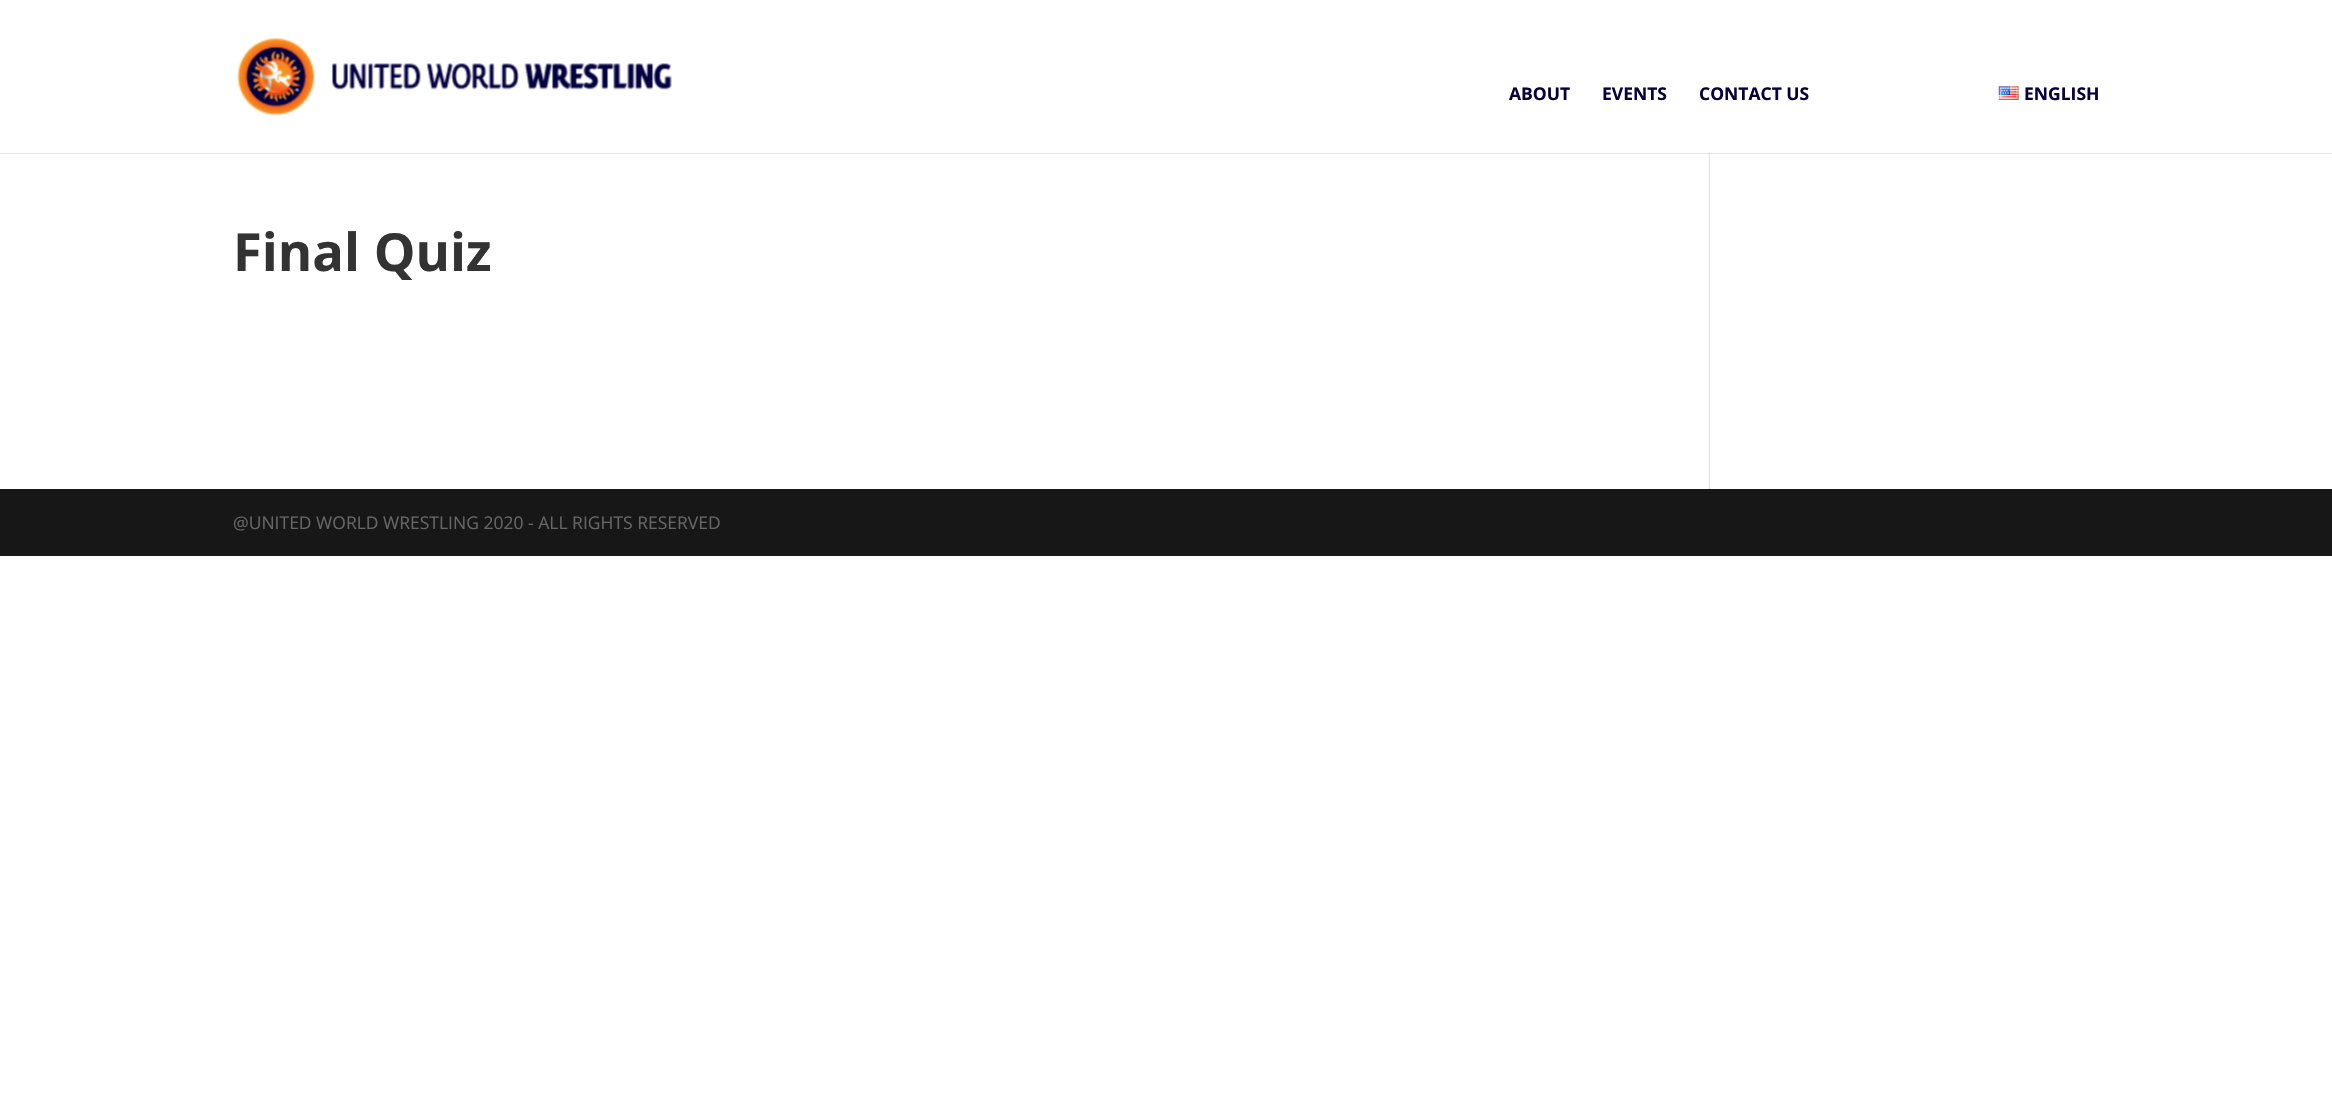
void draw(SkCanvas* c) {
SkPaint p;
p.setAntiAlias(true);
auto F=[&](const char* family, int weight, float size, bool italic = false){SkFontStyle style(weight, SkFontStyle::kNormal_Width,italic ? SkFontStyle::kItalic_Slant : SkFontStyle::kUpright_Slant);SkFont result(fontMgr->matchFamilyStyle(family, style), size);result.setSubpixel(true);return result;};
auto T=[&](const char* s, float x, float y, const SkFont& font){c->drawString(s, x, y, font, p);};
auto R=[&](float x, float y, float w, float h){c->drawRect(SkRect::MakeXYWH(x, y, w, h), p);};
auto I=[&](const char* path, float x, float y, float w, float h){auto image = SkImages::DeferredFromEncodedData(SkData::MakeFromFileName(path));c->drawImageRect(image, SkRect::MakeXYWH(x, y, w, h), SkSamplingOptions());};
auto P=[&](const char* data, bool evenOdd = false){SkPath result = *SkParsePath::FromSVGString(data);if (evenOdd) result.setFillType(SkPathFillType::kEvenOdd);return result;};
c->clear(0xffffffff);
p.setColor(0xffe2e2e2);
R(1709,153,1,336);
p.setColor(0x1a000000);
c->drawPath(P("M0 152v2h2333v-153h-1v151z"),p);
p.setColor(0xffffffff);
R(0,152,2332,1);
I("1.png",237,38,435,78);
auto f1 = F("Open Sans",700,17.5);
p.setColor(0xff07003f);
T("ABOUT",1509,100,f1);
T("EVENTS",1602,100,f1);
T("CONTACT US",1699,100,f1);
I("2.png",1998,86,21,14);
T("ENGLISH",2024,100,f1);
auto f2 = F("Open Sans",700,52.5);
p.setColor(0xff333333);
T("Final Quiz",233,271,f2);
p.setColor(0xff171717);
R(0,489,2332,67);
auto f3 = F("Open Sans",400,17.5);
p.setColor(0xff666666);
T("@UNITED WORLD WRESTLING 2020 - ALL RIGHTS RESERVED",233,529,f3);
}
